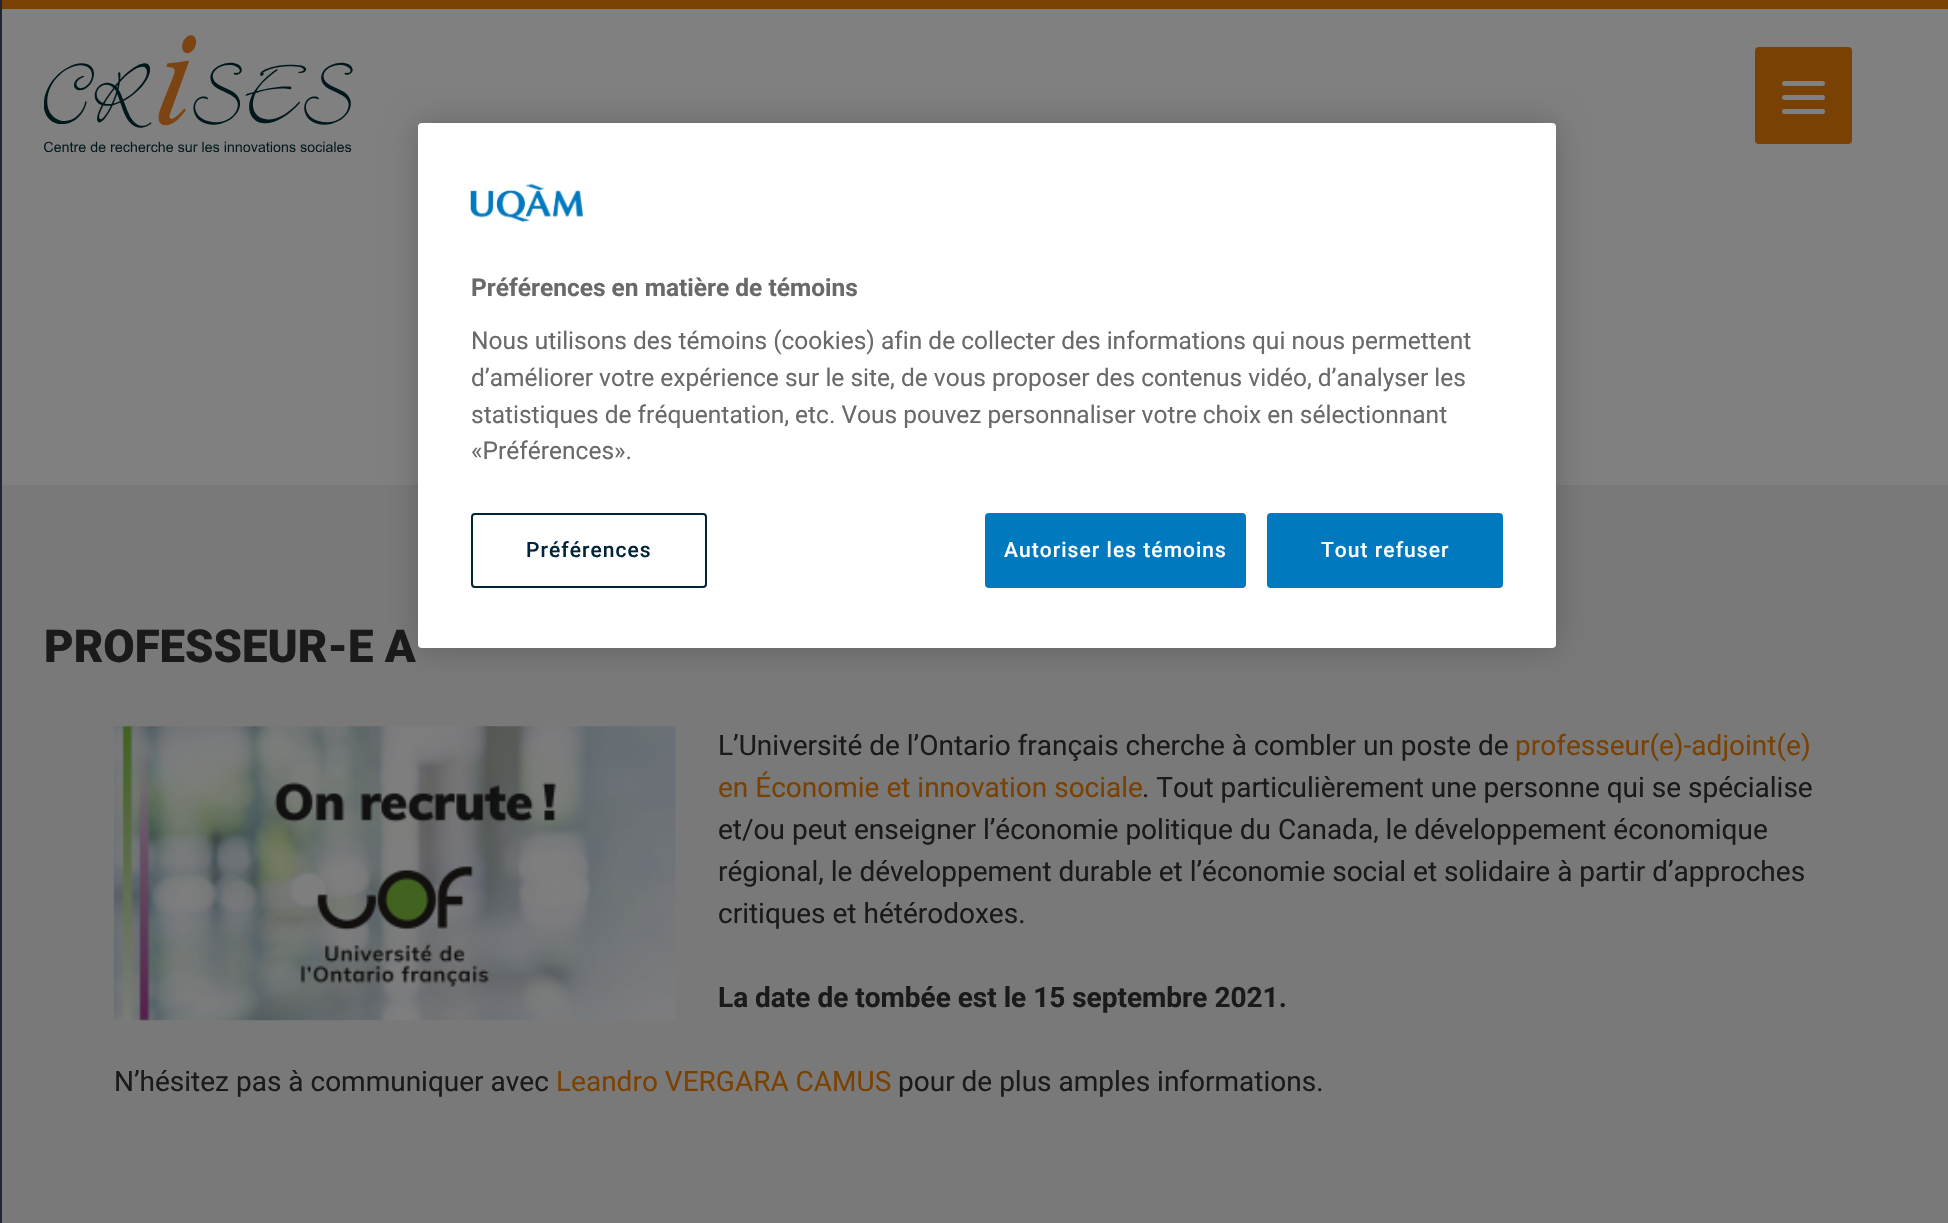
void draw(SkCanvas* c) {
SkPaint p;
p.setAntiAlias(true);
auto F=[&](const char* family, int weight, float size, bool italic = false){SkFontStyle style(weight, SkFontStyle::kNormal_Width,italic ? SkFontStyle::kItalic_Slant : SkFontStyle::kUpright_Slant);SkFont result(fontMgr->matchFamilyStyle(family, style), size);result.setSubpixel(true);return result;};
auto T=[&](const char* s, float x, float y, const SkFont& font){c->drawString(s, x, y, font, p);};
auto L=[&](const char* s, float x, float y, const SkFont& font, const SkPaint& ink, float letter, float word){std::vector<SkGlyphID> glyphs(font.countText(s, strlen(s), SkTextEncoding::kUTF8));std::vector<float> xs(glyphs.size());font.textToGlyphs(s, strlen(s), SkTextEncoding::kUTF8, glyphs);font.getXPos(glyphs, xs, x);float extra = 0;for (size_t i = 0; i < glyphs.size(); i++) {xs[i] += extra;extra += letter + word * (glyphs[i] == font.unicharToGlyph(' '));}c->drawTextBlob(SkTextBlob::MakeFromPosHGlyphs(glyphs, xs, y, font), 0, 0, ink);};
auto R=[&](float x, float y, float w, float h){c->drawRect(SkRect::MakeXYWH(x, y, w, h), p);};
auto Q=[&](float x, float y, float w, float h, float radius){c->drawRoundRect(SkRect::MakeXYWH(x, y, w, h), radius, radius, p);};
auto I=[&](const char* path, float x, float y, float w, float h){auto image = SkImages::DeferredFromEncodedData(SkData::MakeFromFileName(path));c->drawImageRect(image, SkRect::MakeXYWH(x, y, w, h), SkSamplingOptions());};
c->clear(0xff808080);
p.setColor(0xff1f2733);
R(0,0,2,1223);
p.setColor(0xff794204);
Q(1755,47,97,97,4);
p.setColor(0xff808080);
Q(1782,95,43,5,2.5);
Q(1782,81,43,5,2.5);
Q(1782,109,43,5,2.5);
p.setColor(0xff797979);
R(2,485,1946,738);
p.setColor(0x33000000);
p.setMaskFilter(SkMaskFilter::MakeBlur(kNormal_SkBlurStyle, 16));
c->drawRoundRect(SkRect::MakeXYWH(418,123,1138,525),4,4,p);
p.setMaskFilter(nullptr);
p.setColor(0xffffffff);
Q(418,123,1138,525,4);
I("1.png",470,183,113,39);
auto f1 = F("Roboto",700,24.5);
p.setColor(0xff696969);
T("Préférences en matière de témoins",471,296,f1);
auto f2 = F("Roboto",400,24.5);
T("Nous utilisons des témoins (cookies) afin de collecter des informations qui nous permettent",471,349,f2);
T("d’améliorer votre expérience sur le site, de vous proposer des contenus vidéo, d’analyser les",471,386,f2);
T("statistiques de fréquentation, etc. Vous pouvez personnaliser votre choix en sélectionnant",471,423,f2);
T("« Préférences ».",471,459,f2);
p.setStroke(true);
p.setStrokeWidth(2);
p.setColor(0xff002539);
c->drawRoundRect(SkRect::MakeXYWH(472,514,234,73),3,3,p);
auto f3 = F("Roboto",500,21);
p.setStroke(false);
L("Préférences",526,557,f3,p,1.05,0);
p.setColor(0xff0079be);
c->drawRoundRect(SkRect::MakeXYWH(986,514,259,73),3,3,p);
p.setStroke(true);
c->drawRoundRect(SkRect::MakeXYWH(986,514,259,73),3,3,p);
p.setStroke(false);
p.setColor(0xffffffff);
L("Autoriser les témoins",1004,557,f3,p,1.05,0);
p.setColor(0xff0079be);
c->drawRoundRect(SkRect::MakeXYWH(1268,514,234,73),3,3,p);
p.setStroke(true);
c->drawRoundRect(SkRect::MakeXYWH(1268,514,234,73),3,3,p);
p.setStroke(false);
p.setColor(0xffffffff);
L("Tout refuser",1321,557,f3,p,1.05,0);
p.setColor(0xff794204);
R(2,0,1946,9);
I("2.png",44,35,309,117);
auto f4 = F("Roboto",900,45.5);
p.setColor(0xff1a1a1a);
T("PROFESSEUR-E A",44,662,f4);
I("3.png",113,726,563,295);
auto f5 = F("Roboto",400,28);
T("L’Université de l’Ontario français cherche à combler un poste de",718,755,f5);
p.setColor(0xff794204);
T("professeur(e)-adjoint(e)",1515,755,f5);
T("en Économie et innovation sociale",718,797,f5);
p.setColor(0xff1a1a1a);
T(". Tout particulièrement une personne qui se spécialise",1142,797,f5);
T("et/ou peut enseigner l’économie politique du Canada, le développement économique",718,839,f5);
T("régional, le développement durable et l’économie social et solidaire à partir d’approches",718,881,f5);
T("critiques et hétérodoxes.",718,923,f5);
auto f6 = F("Roboto",700,28);
T("La date de tombée est le 15 septembre 2021.",718,1007,f6);
T("N’hésitez pas à communiquer avec",114,1091,f5);
p.setColor(0xff794204);
T("Leandro VERGARA CAMUS",556,1091,f5);
p.setColor(0xff1a1a1a);
T("pour de plus amples informations.",898,1091,f5);
}
